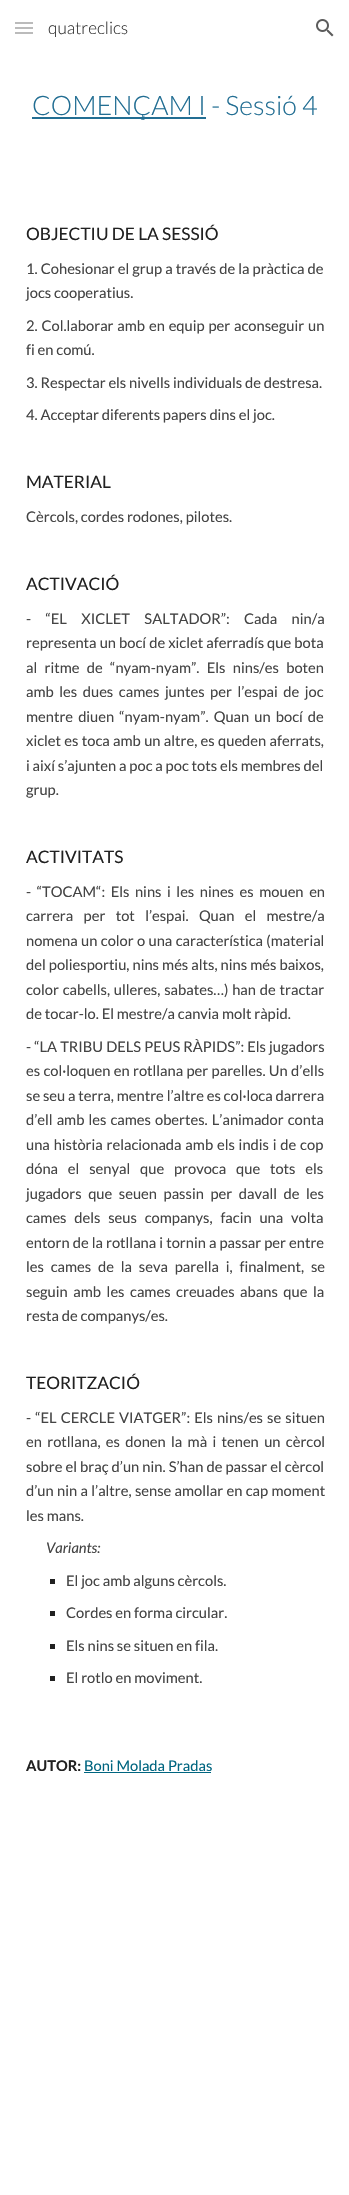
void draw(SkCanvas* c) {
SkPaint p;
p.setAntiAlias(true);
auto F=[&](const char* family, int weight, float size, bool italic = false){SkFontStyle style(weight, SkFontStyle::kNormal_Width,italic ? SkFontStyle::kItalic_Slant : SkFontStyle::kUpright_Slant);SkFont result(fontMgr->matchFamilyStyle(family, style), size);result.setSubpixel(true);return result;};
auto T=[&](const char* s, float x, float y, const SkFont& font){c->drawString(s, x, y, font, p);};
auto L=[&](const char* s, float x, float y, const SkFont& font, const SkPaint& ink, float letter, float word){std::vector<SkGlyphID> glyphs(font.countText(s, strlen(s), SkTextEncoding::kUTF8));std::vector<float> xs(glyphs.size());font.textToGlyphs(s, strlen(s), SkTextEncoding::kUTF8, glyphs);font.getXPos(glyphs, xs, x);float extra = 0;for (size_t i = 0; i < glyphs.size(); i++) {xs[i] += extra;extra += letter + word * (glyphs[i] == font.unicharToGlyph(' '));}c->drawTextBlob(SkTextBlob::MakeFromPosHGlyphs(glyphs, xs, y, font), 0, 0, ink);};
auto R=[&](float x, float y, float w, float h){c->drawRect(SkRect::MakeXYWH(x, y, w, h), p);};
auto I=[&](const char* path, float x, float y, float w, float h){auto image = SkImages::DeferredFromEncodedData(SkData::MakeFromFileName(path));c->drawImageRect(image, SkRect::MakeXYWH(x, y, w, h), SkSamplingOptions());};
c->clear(0xffffffff);
p.setColor(0xffb2b2b2);
R(15,22,18,2);
R(15,27,18,2);
R(15,32,18,2);
p.setColor(0x1fffffff);
R(15,22,18,12);
auto f1 = F("Lato",300,17.25);
p.setColor(0xff333333);
T("quatreclics",48,34,f1);
I("1.png",316,19,18,18);
p.setColor(0xff226e93);
R(32,117,174,2);
auto f2 = F("Lato",300,26.75);
T("COMENÇAM I - Sessió 4",32,115,f2);
auto f3 = F("Lato",400,17.25);
p.setColor(0xff212121);
T("OBJECTIU DE LA SESSIÓ",26,240,f3);
auto f4 = F("Lato",400,14.7);
p.setColor(0xff444444);
L("1. Cohesionar el grup a través de la pràctica de",26,274,f4,p,0,.25);
T("jocs cooperatius.",26,298,f4);
L("2. Col.laborar amb en equip per aconseguir un",26,331,f4,p,0,1);
T("fi en comú.",26,355,f4);
T("3. Respectar els nivells individuals de destresa.",26,388,f4);
T("4. Acceptar diferents papers dins el joc.",26,420,f4);
p.setColor(0xff212121);
T("MATERIAL",26,488,f3);
p.setColor(0xff444444);
T("Cèrcols, cordes rodones, pilotes.",26,522,f4);
p.setColor(0xff212121);
T("ACTIVACIÓ",26,590,f3);
p.setColor(0xff444444);
L("- “EL XICLET SALTADOR”: Cada nin/a",26,624,f4,p,0,11.5);
L("representa un bocí de xiclet aferradís que bota",26,648,f4,p,0,.25);
L("al ritme de “nyam-nyam”. Els nins/es boten",26,673,f4,p,0,4.5);
L("amb les dues cames juntes per l’espai de joc",26,697,f4,p,0,2.75);
L("mentre diuen “nyam-nyam”. Quan un bocí de",26,722,f4,p,0,2.25);
L("xiclet es toca amb un altre, es queden aferrats,",26,746,f4,p,0,.5);
T("i així s’ajunten a poc a poc tots els membres del",26,771,f4);
T("grup.",26,795,f4);
p.setColor(0xff212121);
T("ACTIVITATS",26,863,f3);
p.setColor(0xff444444);
L("- “TOCAM“: Els nins i les nines es mouen en",26,897,f4,p,0,2.75);
L("carrera per tot l’espai. Quan el mestre/a",26,921,f4,p,0,7.5);
L("nomena un color o una característica (material",26,946,f4,p,0,.5);
L("del poliesportiu, nins més alts, nins més baixos,",26,970,f4,p,0,.25);
L("color cabells, ulleres, sabates…) han de tractar",26,995,f4,p,0,1);
T("de tocar-lo. El mestre/a canvia molt ràpid.",26,1019,f4);
L("- “LA TRIBU DELS PEUS RÀPIDS”: Els jugadors",26,1052,f4,p,0,.25);
L("es col·loquen en rotllana per parelles. Un d’ells",26,1076,f4,p,0,.5);
T("se seu a terra, mentre l’altre es col·loca darrera",26,1101,f4);
L("d’ell amb les cames obertes. L’animador conta",26,1125,f4,p,0,1.25);
L("una història relacionada amb els indis i de cop",26,1150,f4,p,0,1);
L("dóna el senyal que provoca que tots els",26,1174,f4,p,0,7);
L("jugadors que seuen passin per davall de les",26,1199,f4,p,0,3.75);
L("cames dels seus companys, facin una volta",26,1223,f4,p,0,5);
L("entorn de la rotllana i tornin a passar per entre",26,1248,f4,p,0,.25);
L("les cames de la seva parella i, finalment, se",26,1272,f4,p,0,4);
L("seguin amb les cames creuades abans que la",26,1297,f4,p,0,2.75);
T("resta de companys/es.",26,1321,f4);
p.setColor(0xff212121);
T("TEORITZACIÓ",26,1389,f3);
p.setColor(0xff444444);
L("- “EL CERCLE VIATGER”: Els nins/es se situen",26,1423,f4,p,0,1.25);
L("en rotllana, es donen la mà i tenen un cèrcol",26,1447,f4,p,0,2.5);
L("sobre el braç d’un nin. S’han de passar el cèrcol",26,1472,f4,p,0,.25);
L("d’un nin a l’altre, sense amollar en cap moment",26,1496,f4,p,0,.5);
T("les mans.",26,1521,f4);
auto f5 = F("Lato",400,14.7,true);
T("Variants:",46,1553,f5);
p.setColor(0xff212121);
R(50,1579,5,5);
p.setColor(0xff444444);
T("El joc amb alguns cèrcols.",66,1586,f4);
p.setColor(0xff212121);
R(50,1611,5,5);
p.setColor(0xff444444);
T("Cordes en forma circular.",66,1618,f4);
p.setColor(0xff212121);
R(50,1644,5,5);
p.setColor(0xff444444);
T("Els nins se situen en fila.",66,1651,f4);
p.setColor(0xff212121);
R(50,1676,5,5);
p.setColor(0xff444444);
T("El rotlo en moviment.",66,1683,f4);
auto f6 = F("Lato",700,14.7);
p.setColor(0xff212121);
T("AUTOR:",26,1771,f6);
p.setColor(0xff006580);
T("Boni Molada Pradas",84,1771,f4);
R(84,1772,127,1);
}
